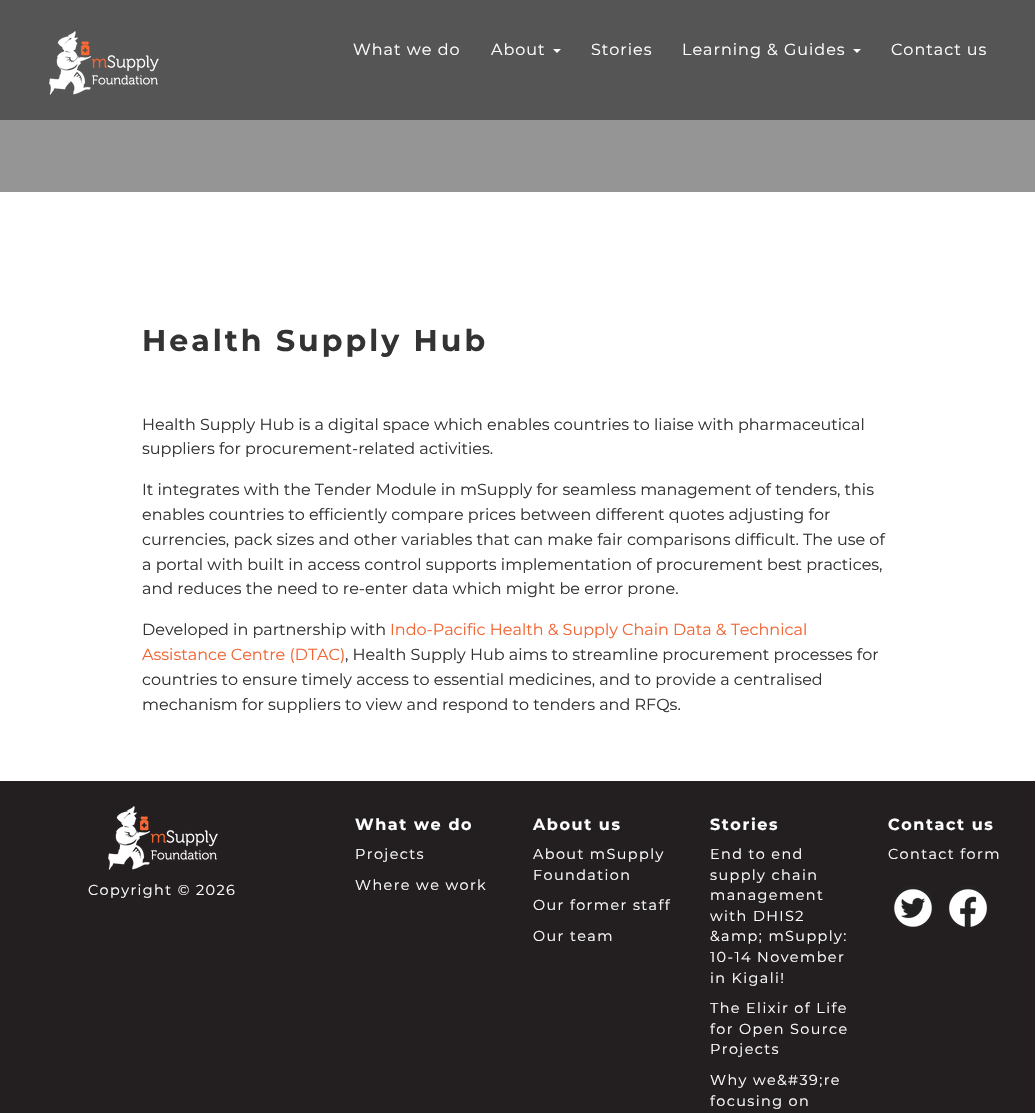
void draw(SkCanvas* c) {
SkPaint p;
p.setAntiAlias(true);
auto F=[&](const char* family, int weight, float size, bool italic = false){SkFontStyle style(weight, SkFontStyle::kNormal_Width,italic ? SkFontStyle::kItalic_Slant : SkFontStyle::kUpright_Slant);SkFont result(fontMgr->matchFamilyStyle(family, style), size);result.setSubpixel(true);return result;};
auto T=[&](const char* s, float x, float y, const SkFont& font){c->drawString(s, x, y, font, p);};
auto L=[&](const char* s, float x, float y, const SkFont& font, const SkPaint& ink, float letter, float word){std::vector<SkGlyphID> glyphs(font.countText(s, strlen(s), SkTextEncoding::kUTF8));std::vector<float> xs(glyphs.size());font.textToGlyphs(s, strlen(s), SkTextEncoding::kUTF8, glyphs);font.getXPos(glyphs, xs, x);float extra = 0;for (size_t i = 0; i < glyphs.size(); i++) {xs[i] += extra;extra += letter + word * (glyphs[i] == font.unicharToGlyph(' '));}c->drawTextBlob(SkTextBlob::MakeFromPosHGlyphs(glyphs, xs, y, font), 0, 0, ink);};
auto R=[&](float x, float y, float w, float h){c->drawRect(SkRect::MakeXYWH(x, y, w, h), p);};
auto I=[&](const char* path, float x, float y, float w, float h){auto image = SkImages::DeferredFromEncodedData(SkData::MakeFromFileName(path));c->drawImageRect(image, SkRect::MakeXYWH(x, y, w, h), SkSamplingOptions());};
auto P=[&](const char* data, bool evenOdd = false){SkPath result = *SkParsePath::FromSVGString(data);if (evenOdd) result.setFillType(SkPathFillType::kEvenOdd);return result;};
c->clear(0xff959595);
p.setColor(0xff555555);
R(0,0,1035,120);
I("1.png",49,31,110,64);
auto f1 = F("Montserrat",400,16);
p.setColor(0xffffffff);
L("What we do",353,55,f1,p,1,0);
L("About",491,55,f1,p,1,0);
c->drawPath(P("M553 49h8l-4 4z"),p);
L("Stories",591,55,f1,p,1,0);
L("Learning & Guides",682,55,f1,p,1,0);
c->drawPath(P("M853 49h8l-4 4z"),p);
L("Contact us",891,55,f1,p,1,0);
R(0,192,1035,589);
auto f2 = F("Montserrat",700,30);
p.setColor(0xff333333);
L("Health Supply Hub",142,351,f2,p,3,0);
T("Health Supply Hub is a digital space which enables countries to liaise with pharmaceutical",142,430,f1);
T("suppliers for procurement-related activities.",142,454,f1);
T("It integrates with the Tender Module in mSupply for seamless management of tenders, this",142,495,f1);
T("enables countries to efficiently compare prices between different quotes adjusting for",142,520,f1);
T("currencies, pack sizes and other variables that can make fair comparisons difficult. The use of",142,545,f1);
T("a portal with built in access control supports implementation of procurement best practices,",142,570,f1);
T("and reduces the need to re-enter data which might be error prone.",142,594,f1);
T("Developed in partnership with",142,635,f1);
p.setColor(0xfff26532);
T("Indo-Pacific Health & Supply Chain Data & Technical",390,635,f1);
T("Assistance Centre (DTAC)",142,660,f1);
p.setColor(0xff333333);
T(", Health Supply Hub aims to streamline procurement processes for",345,660,f1);
T("countries to ensure timely access to essential medicines, and to provide a centralised",142,685,f1);
T("mechanism for suppliers to view and respond to tenders and RFQs.",142,710,f1);
p.setColor(0xff231f20);
R(0,781,1035,332);
auto f3 = F("Montserrat",700,16);
p.setColor(0xffffffff);
L("What we do",355,830,f3,p,1.6,0);
auto f4 = F("Montserrat",400,14.4);
L("Projects",355,859,f4,p,1.4,0);
L("Where we work",355,890,f4,p,1.4,0);
L("About us",533,830,f3,p,1.6,0);
L("About mSupply",533,859,f4,p,1.4,0);
L("Foundation",533,880,f4,p,1.4,0);
L("Our former staff",533,910,f4,p,1.4,0);
L("Our team",533,941,f4,p,1.4,0);
L("Stories",710,830,f3,p,1.6,0);
L("End to end",710,859,f4,p,1.4,0);
L("supply chain",710,880,f4,p,1.4,0);
L("management",710,900,f4,p,1.4,0);
L("with DHIS2",710,921,f4,p,1.4,0);
L("&amp; mSupply:",710,941,f4,p,1.4,0);
L("10-14 November",710,962,f4,p,1.4,0);
L("in Kigali!",710,983,f4,p,1.4,0);
L("The Elixir of Life",710,1013,f4,p,1.4,0);
L("for Open Source",710,1034,f4,p,1.4,0);
L("Projects",710,1054,f4,p,1.4,0);
L("Why we&#39;re",710,1085,f4,p,1.4,0);
L("focusing on",710,1106,f4,p,1.4,0);
L("Contact us",888,830,f3,p,1.6,0);
L("Contact form",888,859,f4,p,1.4,0);
p.setColor(0xff222222);
c->drawCircle(913,906,20,p);
I("2.png",894,889,38,38);
c->drawCircle(968,906,20,p);
I("3.png",949,889,38,38);
I("4.png",108,806,110,64);
p.setColor(0xffffffff);
L("Copyright © 2026",88,895,f4,p,1.4,0);
}
